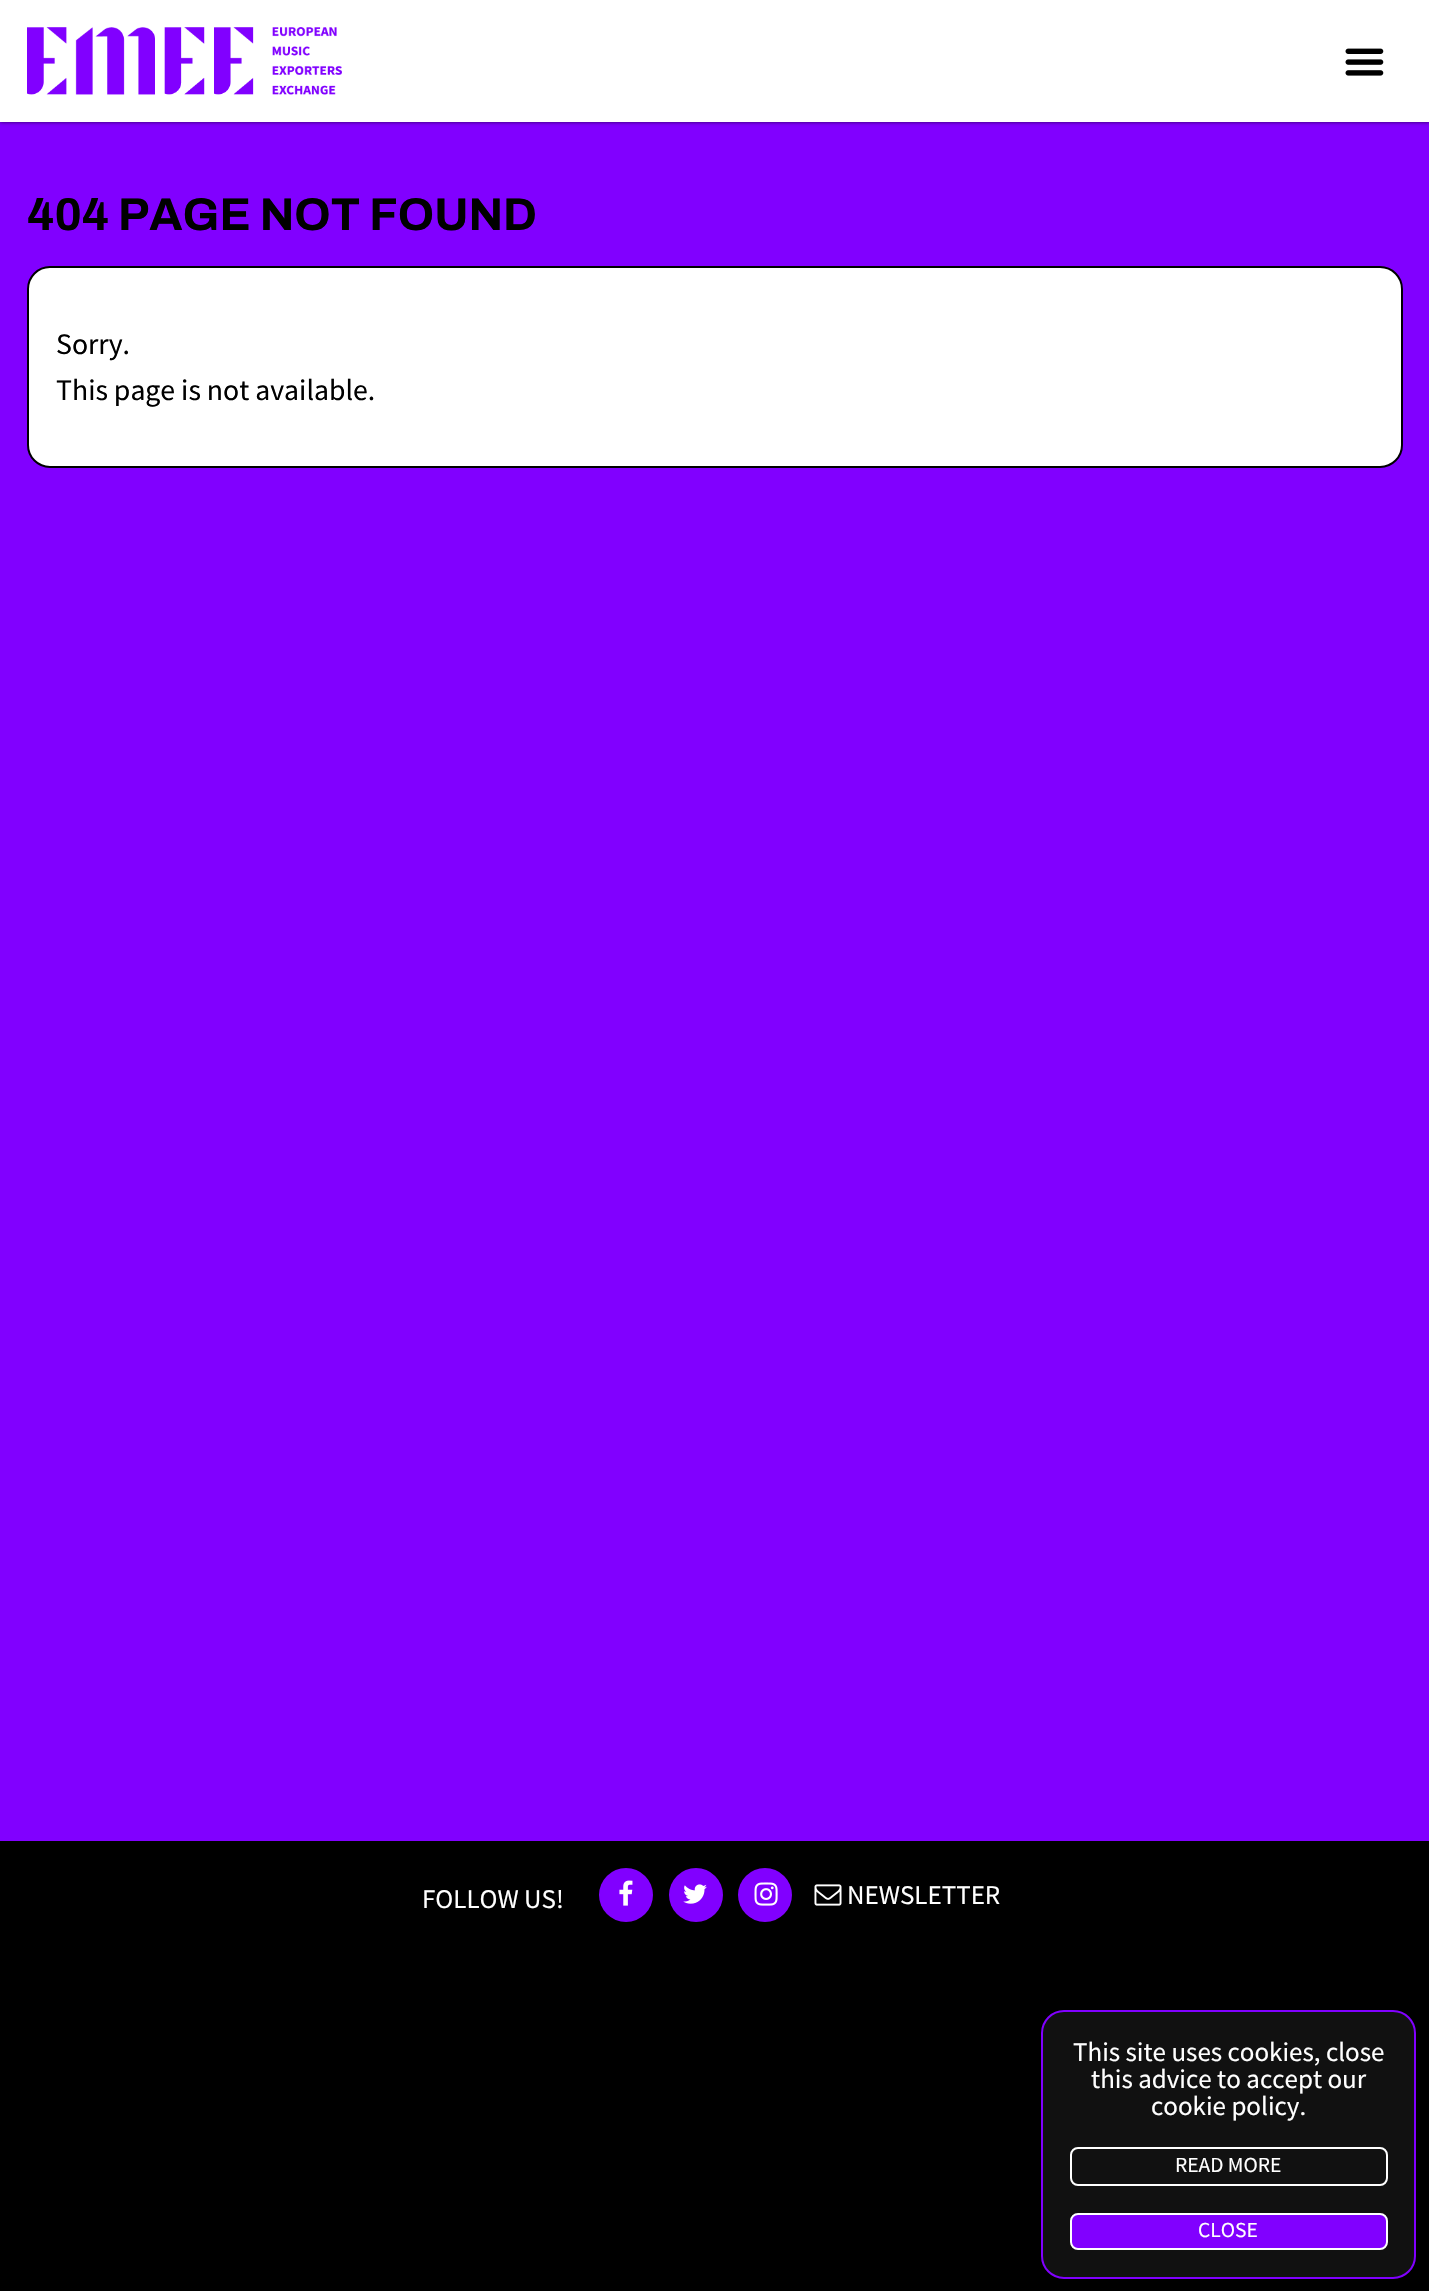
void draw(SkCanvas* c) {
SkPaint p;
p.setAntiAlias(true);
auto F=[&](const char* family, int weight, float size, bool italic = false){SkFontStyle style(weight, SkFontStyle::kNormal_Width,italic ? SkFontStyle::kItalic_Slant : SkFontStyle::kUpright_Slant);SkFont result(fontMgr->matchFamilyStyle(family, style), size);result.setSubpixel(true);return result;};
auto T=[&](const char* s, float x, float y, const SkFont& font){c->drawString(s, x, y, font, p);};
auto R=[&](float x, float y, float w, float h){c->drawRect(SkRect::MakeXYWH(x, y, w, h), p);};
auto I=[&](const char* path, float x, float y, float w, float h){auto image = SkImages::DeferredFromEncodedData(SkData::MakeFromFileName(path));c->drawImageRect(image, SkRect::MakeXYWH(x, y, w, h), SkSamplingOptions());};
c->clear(0xff000000);
p.setColor(0xff8100ff);
R(0,122,1429,1719);
p.setColor(0xab000000);
p.setMaskFilter(SkMaskFilter::MakeBlur(kNormal_SkBlurStyle, 2));
c->drawRect(SkRect::MakeXYWH(0,0,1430,122),p);
p.setMaskFilter(nullptr);
p.setColor(0xffffffff);
R(0,0,1429,122);
I("1.png",27,27,315,68);
I("2.png",1345,48,39,28);
auto f1 = F("Archivo",700,45.9);
p.setColor(0xff000000);
T("404 PAGE NOT FOUND",27,230,f1);
p.setColor(0xffffffff);
c->drawRoundRect(SkRect::MakeXYWH(28,267,1374,200),22,22,p);
p.setStroke(true);
p.setStrokeWidth(2);
p.setColor(0xff000000);
c->drawRoundRect(SkRect::MakeXYWH(28,267,1374,200),22,22,p);
auto f2 = F("Source Sans Pro",400,29.75);
p.setStroke(false);
T("Sorry.",56,354,f2);
T("This page is not available.",56,400,f2);
auto f3 = F("Source Sans Pro",400,27);
p.setColor(0xffffffff);
T("FOLLOW US!",422,1908,f3);
p.setColor(0xff8100ff);
c->drawCircle(626,1895,27,p);
I("3.png",619,1880,14,26);
c->drawCircle(696,1895,27,p);
I("4.png",683,1884,24,20);
c->drawCircle(765,1895,27,p);
I("5.png",754,1882,24,24);
I("6.png",814,1884,28,22);
p.setColor(0xffffffff);
T("NEWSLETTER",847,1904,f3);
p.setColor(0xff111111);
c->drawRoundRect(SkRect::MakeXYWH(1042,2011,373,267),22,22,p);
p.setStroke(true);
p.setColor(0xff8100ff);
c->drawRoundRect(SkRect::MakeXYWH(1042,2011,373,267),22,22,p);
p.setStroke(false);
p.setColor(0xffffffff);
T("This site uses cookies, close",1073,2061,f3);
T("this advice to accept our",1091,2088,f3);
T("cookie policy.",1151,2115,f3);
p.setStroke(true);
c->drawRoundRect(SkRect::MakeXYWH(1071,2148,316,37),7,7,p);
auto f4 = F("Source Sans Pro",400,21.5);
p.setStroke(false);
T("READ MORE",1175,2172,f4);
p.setColor(0xff8100ff);
c->drawRoundRect(SkRect::MakeXYWH(1071,2214,316,35),7,7,p);
p.setStroke(true);
p.setColor(0xffffffff);
c->drawRoundRect(SkRect::MakeXYWH(1071,2214,316,35),7,7,p);
p.setStroke(false);
T("CLOSE",1198,2237,f4);
}
